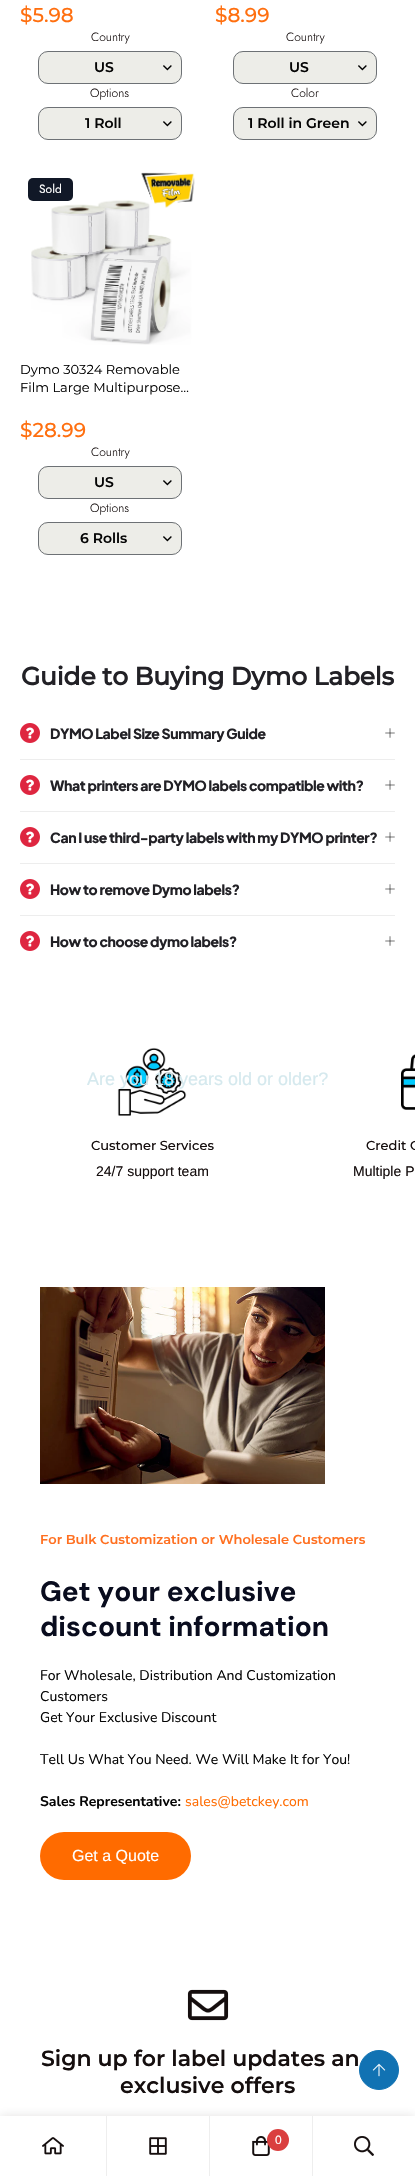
void draw(SkCanvas* c) {
SkPaint p;
p.setAntiAlias(true);
auto F=[&](const char* family, int weight, float size, bool italic = false){SkFontStyle style(weight, SkFontStyle::kNormal_Width,italic ? SkFontStyle::kItalic_Slant : SkFontStyle::kUpright_Slant);SkFont result(fontMgr->matchFamilyStyle(family, style), size);result.setSubpixel(true);return result;};
auto T=[&](const char* s, float x, float y, const SkFont& font){c->drawString(s, x, y, font, p);};
auto L=[&](const char* s, float x, float y, const SkFont& font, const SkPaint& ink, float letter, float word){std::vector<SkGlyphID> glyphs(font.countText(s, strlen(s), SkTextEncoding::kUTF8));std::vector<float> xs(glyphs.size());font.textToGlyphs(s, strlen(s), SkTextEncoding::kUTF8, glyphs);font.getXPos(glyphs, xs, x);float extra = 0;for (size_t i = 0; i < glyphs.size(); i++) {xs[i] += extra;extra += letter + word * (glyphs[i] == font.unicharToGlyph(' '));}c->drawTextBlob(SkTextBlob::MakeFromPosHGlyphs(glyphs, xs, y, font), 0, 0, ink);};
auto R=[&](float x, float y, float w, float h){c->drawRect(SkRect::MakeXYWH(x, y, w, h), p);};
auto Q=[&](float x, float y, float w, float h, float radius){c->drawRoundRect(SkRect::MakeXYWH(x, y, w, h), radius, radius, p);};
auto I=[&](const char* path, float x, float y, float w, float h){auto image = SkImages::DeferredFromEncodedData(SkData::MakeFromFileName(path));c->drawImageRect(image, SkRect::MakeXYWH(x, y, w, h), SkSamplingOptions());};
c->clear(0xffffffff);
auto f1 = F("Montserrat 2",500,20);
p.setColor(0xffff6f0f);
T("$5.98",20,22,f1);
auto f2 = F("Jost",300,12);
p.setColor(0xff150e0e);
T("Country",91,41,f2);
p.setColor(0xffedede8);
Q(38,51,144,33,10);
I("1.png",163,65,9,6);
p.setStroke(true);
p.setStrokeWidth(1);
p.setColor(0xff6d7175);
c->drawRoundRect(SkRect::MakeXYWH(38.5,51.5,143,32),9.5,9.5,p);
auto f3 = F("Montserrat 2",600,14);
p.setStroke(false);
p.setColor(0xff050505);
T("US",94,72,f3);
p.setColor(0xff150e0e);
T("Options",90,97,f2);
p.setColor(0xffedede8);
Q(38,107,144,33,10);
I("1.png",163,121,9,6);
p.setStroke(true);
p.setColor(0xff6d7175);
c->drawRoundRect(SkRect::MakeXYWH(38.5,107.5,143,32),9.5,9.5,p);
p.setStroke(false);
p.setColor(0xff050505);
T("1 Roll",85,128,f3);
p.setColor(0xffff6f0f);
T("$8.99",215,22,f1);
p.setColor(0xff150e0e);
T("Country",286,41,f2);
p.setColor(0xffedede8);
Q(233,51,144,33,10);
I("1.png",358,65,9,6);
p.setStroke(true);
p.setColor(0xff6d7175);
c->drawRoundRect(SkRect::MakeXYWH(233.5,51.5,143,32),9.5,9.5,p);
p.setStroke(false);
p.setColor(0xff050505);
T("US",289,72,f3);
p.setColor(0xff150e0e);
T("Color",291,97,f2);
p.setColor(0xffedede8);
Q(233,107,144,33,10);
I("1.png",358,121,9,6);
p.setStroke(true);
p.setColor(0xff6d7175);
c->drawRoundRect(SkRect::MakeXYWH(233.5,107.5,143,32),9.5,9.5,p);
p.setStroke(false);
p.setColor(0xff050505);
T("1 Roll in Green",248,128,f3);
I("2.png",31,172,164,173);
p.setColor(0xff111827);
Q(28,178,45,23,5);
auto f4 = F("Jost",400,12);
p.setColor(0xffffffff);
T("Sold",39,193,f4);
auto f5 = F("Montserrat",400,13);
p.setColor(0xff050505);
T("Dymo 30324 Removable",20,374,f5);
T("Film Large Multipurpose…",20,392,f5);
p.setColor(0xffff6f0f);
T("$28.99",20,437,f1);
p.setColor(0xff150e0e);
T("Country",91,456,f2);
p.setColor(0xffedede8);
Q(38,466,144,33,10);
I("1.png",163,480,9,6);
p.setStroke(true);
p.setColor(0xff6d7175);
c->drawRoundRect(SkRect::MakeXYWH(38.5,466.5,143,32),9.5,9.5,p);
p.setStroke(false);
p.setColor(0xff050505);
T("US",94,487,f3);
p.setColor(0xff150e0e);
T("Options",90,512,f2);
p.setColor(0xffedede8);
Q(38,522,144,33,10);
I("1.png",163,536,9,6);
p.setStroke(true);
p.setColor(0xff6d7175);
c->drawRoundRect(SkRect::MakeXYWH(38.5,522.5,143,32),9.5,9.5,p);
p.setStroke(false);
p.setColor(0xff050505);
T("6 Rolls",80,543,f3);
auto f6 = F("Montserrat",700,25);
p.setColor(0xff222126);
L("Guide to Buying Dymo Labels",21,685,f6,p,-.2,0);
p.setColor(0xffededed);
R(20,759,375,1);
I("3.png",20,723,20,20);
auto f7 = F("Plus Jakarta Sans",800,14);
p.setColor(0xff222126);
L("DYMO Label Size Summary Guide",50,739,f7,p,-.4,0);
I("4.png",385,728,10,10);
p.setColor(0xffededed);
R(20,811,375,1);
I("3.png",20,775,20,20);
p.setColor(0xff222126);
L("What printers are DYMO labels compatible with?",50,791,f7,p,-.4,0);
I("4.png",385,780,10,10);
p.setColor(0xffededed);
R(20,863,375,1);
I("3.png",20,827,20,20);
p.setColor(0xff222126);
L("Can I use third-party labels with my DYMO printer?",50,843,f7,p,-.4,0);
I("4.png",385,832,10,10);
p.setColor(0xffededed);
R(20,915,375,1);
I("3.png",20,879,20,20);
p.setColor(0xff222126);
L("How to remove Dymo labels?",50,895,f7,p,-.4,0);
I("4.png",385,884,10,10);
I("3.png",20,931,20,20);
L("How to choose dymo labels?",50,947,f7,p,-.4,0);
I("4.png",385,936,10,10);
I("5.png",117,1047,70,69);
auto f8 = F("Liberation Sans",400,18);
p.setColor(0xffd5e9ee);
T("Are you 18 years old or older?",87,1085,f8);
auto f9 = F("Montserrat",500,13);
p.setColor(0xff150e0e);
T("Customer Services",91,1150,f9);
auto f10 = F("Liberation Sans",400,14);
T("24/7 support team",96,1176,f10);
I("6.png",401,1054,14,56);
T("Credit C",366,1150,f9);
T("Multiple P",353,1176,f10);
I("7.png",40,1287,285,197);
auto f11 = F("Montserrat 2",600,13);
p.setColor(0xffff6f1f);
T("For Bulk Customization or Wholesale Customers",40,1544,f11);
auto f12 = F("DM Sans",700,28);
p.setColor(0xff090c1e);
T("Get your exclusive",40,1601,f12);
T("discount information",40,1636,f12);
auto f13 = F("Nunito",400,14);
p.setColor(0xff050505);
T("For Wholesale, Distribution And Customization",40,1680,f13);
T("Customers",40,1701,f13);
T("Get Your Exclusive Discount",40,1722,f13);
T("Tell Us What You Need. We Will Make It for You!",40,1764,f13);
auto f14 = F("Nunito",700,14);
T("Sales Representative:",40,1806,f14);
p.setColor(0xffff6b00);
T("sales@betckey.com",185,1806,f13);
Q(40,1832,151,48,24);
auto f15 = F("Liberation Sans",400,16);
p.setColor(0xffffffff);
T("Get a Quote",72,1861,f15);
I("8.png",187,1989,42,32);
auto f16 = F("Montserrat",600,22);
p.setColor(0xff150e0e);
T("Sign up for label updates an",41,2066,f16);
T("exclusive offers",120,2093,f16);
p.setColor(0xff1172b3);
c->drawCircle(379,2070,19.5,p);
p.setStroke(true);
c->drawCircle(379,2070,19.5,p);
I("9.png",372,2063,14,14);
p.setStroke(false);
p.setColor(0x1f150e0e);
p.setMaskFilter(SkMaskFilter::MakeBlur(kNormal_SkBlurStyle, 5));
c->drawRect(SkRect::MakeXYWH(0,2116,415,60),p);
p.setMaskFilter(nullptr);
p.setColor(0xffffffff);
R(0,2116,415,60);
p.setColor(0xffeeeeee);
R(106,2116,1,60);
I("10.png",42,2137,22,18);
R(209,2116,1,60);
I("11.png",149,2137,18,18);
R(312,2116,1,60);
I("12.png",252,2136,18,20);
p.setColor(0xffda3f3f);
c->drawCircle(278,2140,11,p);
auto f17 = F("Liberation Sans",400,12);
p.setColor(0xffffffff);
T("0",275,2144,f17);
I("13.png",354,2136,20,20);
}
